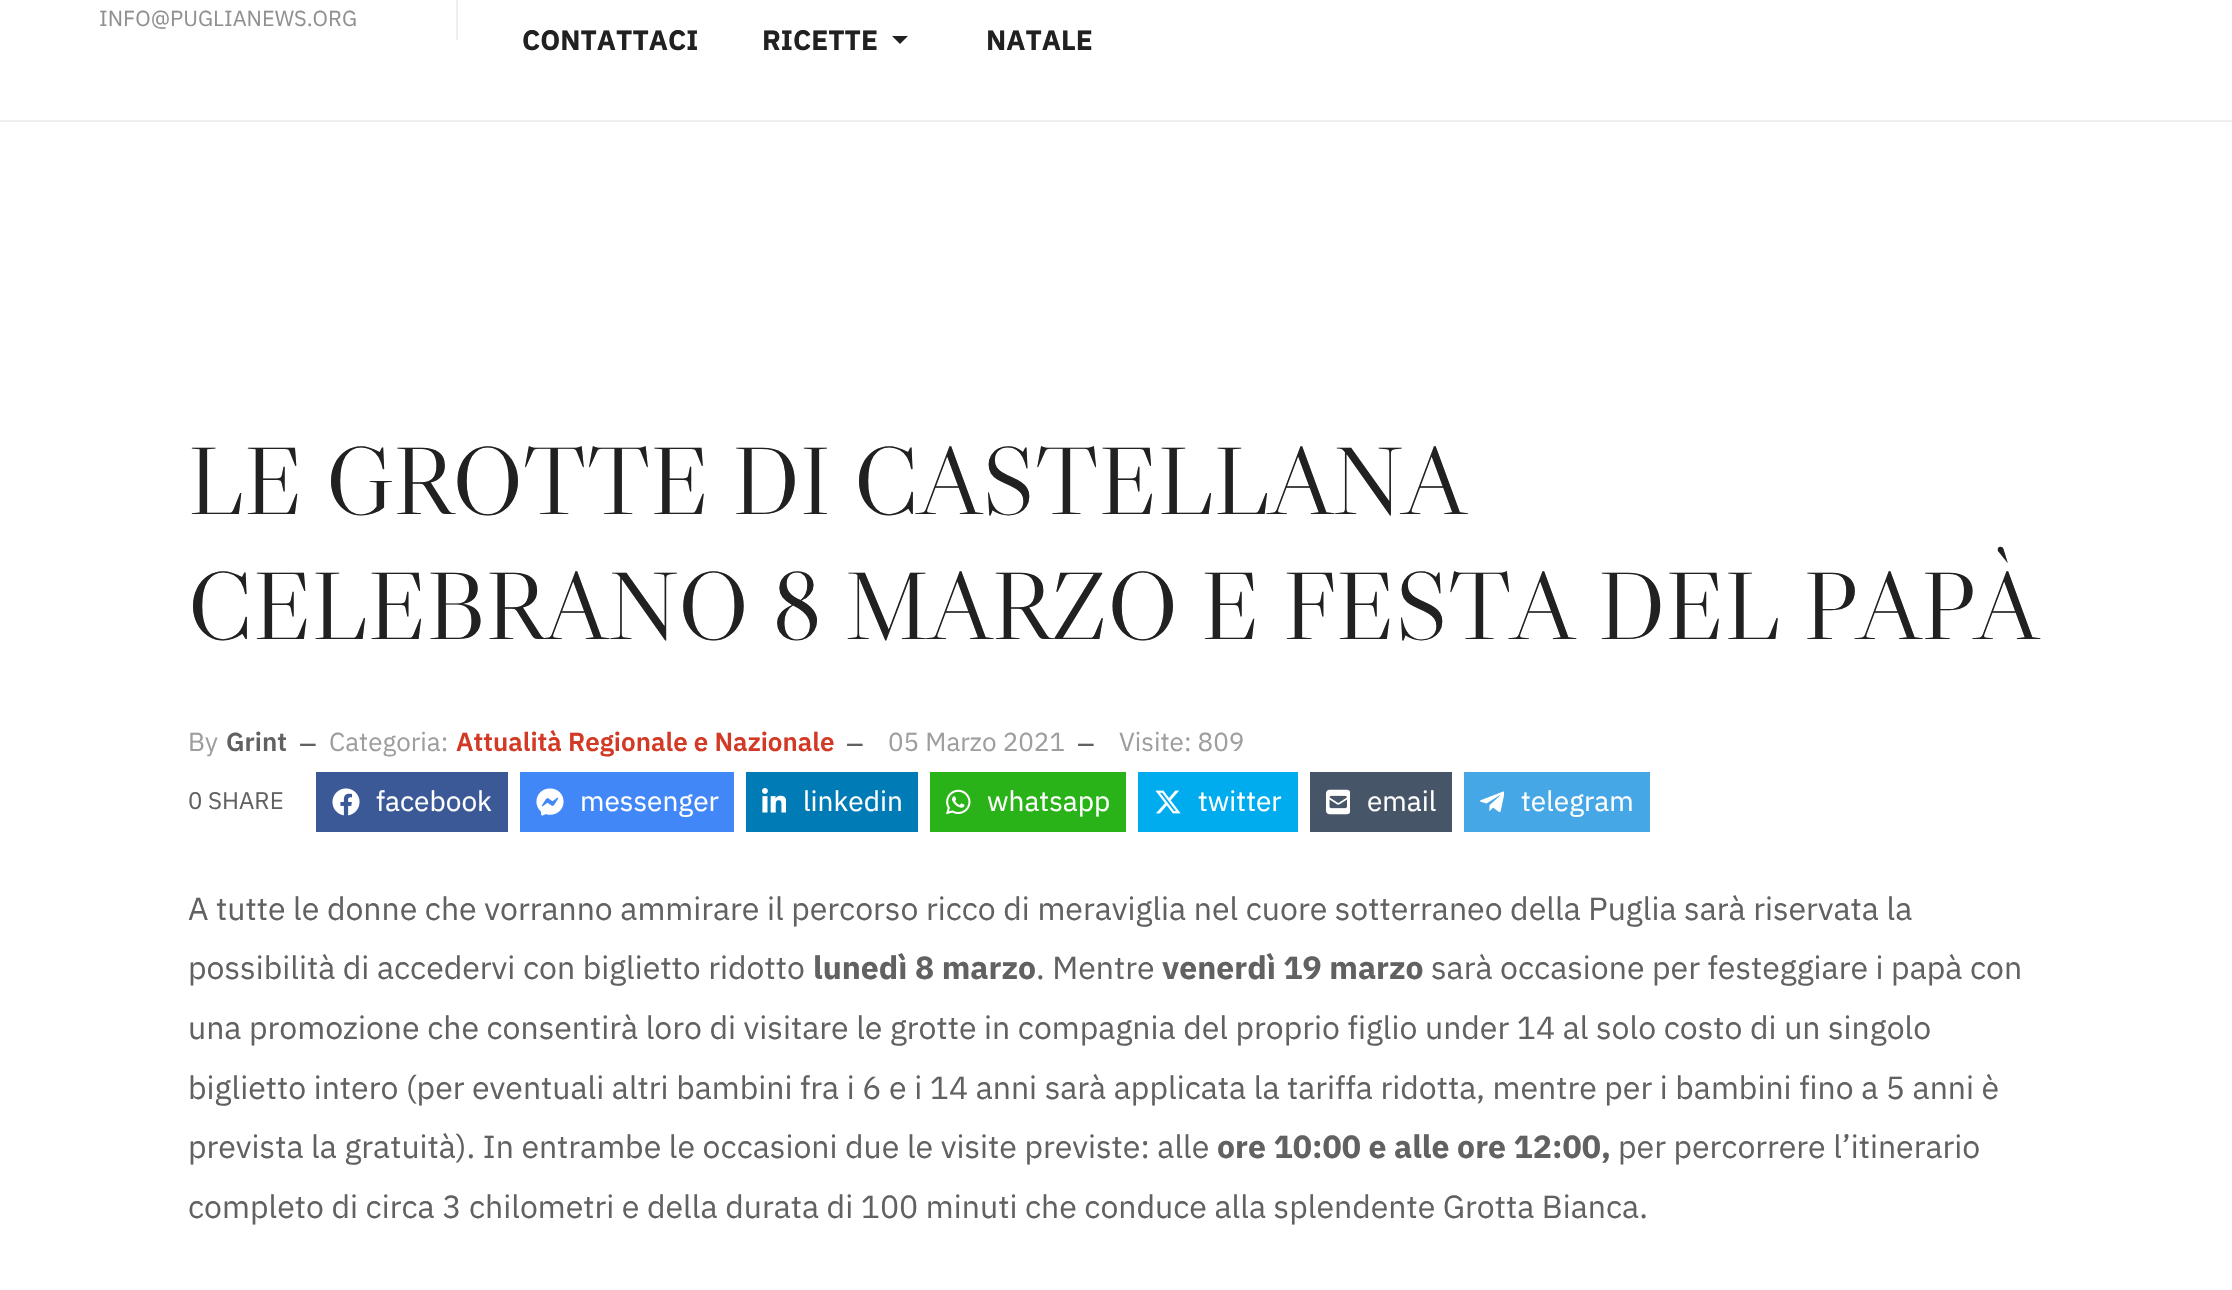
void draw(SkCanvas* c) {
SkPaint p;
p.setAntiAlias(true);
auto F=[&](const char* family, int weight, float size, bool italic = false){SkFontStyle style(weight, SkFontStyle::kNormal_Width,italic ? SkFontStyle::kItalic_Slant : SkFontStyle::kUpright_Slant);SkFont result(fontMgr->matchFamilyStyle(family, style), size);result.setSubpixel(true);return result;};
auto T=[&](const char* s, float x, float y, const SkFont& font){c->drawString(s, x, y, font, p);};
auto R=[&](float x, float y, float w, float h){c->drawRect(SkRect::MakeXYWH(x, y, w, h), p);};
auto I=[&](const char* path, float x, float y, float w, float h){auto image = SkImages::DeferredFromEncodedData(SkData::MakeFromFileName(path));c->drawImageRect(image, SkRect::MakeXYWH(x, y, w, h), SkSamplingOptions());};
auto P=[&](const char* data, bool evenOdd = false){SkPath result = *SkParsePath::FromSVGString(data);if (evenOdd) result.setFillType(SkPathFillType::kEvenOdd);return result;};
c->clear(0xffffffff);
p.setColor(0xffeeeeee);
R(0,120,2232,2);
R(456,0,2,40);
auto f1 = F("IBM Plex Sans",400,21.75);
p.setColor(0xff909090);
T("INFO@PUGLIANEWS.ORG",99,26,f1);
auto f2 = F("IBM Plex Sans",700,28);
p.setColor(0xff212121);
T("CONTATTACI",522,50,f2);
T("RICETTE",762,50,f2);
c->drawPath(P("M892 36h16l-8 8z"),p);
T("NATALE",986,50,f2);
auto f3 = F("Libre Caslon Display",400,96);
T("LE GROTTE DI CASTELLANA",188,514,f3);
T("CELEBRANO 8 MARZO E FESTA DEL PAPÀ",188,639,f3);
auto f4 = F("IBM Plex Sans",400,26);
p.setColor(0xff9e9e9e);
T("By",188,751,f4);
auto f5 = F("IBM Plex Sans",600,26);
p.setColor(0xff616161);
T("Grint",226,751,f5);
auto f6 = F("IBM Plex Sans",400,30);
T("–",299,754,f6);
p.setColor(0xff9e9e9e);
T("Categoria:",329,751,f4);
p.setColor(0xffd23a26);
T("Attualità Regionale e Nazionale",456,751,f5);
p.setColor(0xff616161);
T("–",846,754,f6);
p.setColor(0xff9e9e9e);
T("05 Marzo 2021",888,751,f4);
p.setColor(0xff616161);
T("–",1077,754,f6);
p.setColor(0xff9e9e9e);
T("Visite: 809",1119,751,f4);
auto f7 = F("IBM Plex Sans",400,24);
p.setColor(0xff616161);
T("0 SHARE",188,809,f7);
p.setColor(0xff3b5997);
R(316,772,192,60);
I("1.png",332,788,28,28);
auto f8 = F("IBM Plex Sans",400,28);
p.setColor(0xffffffff);
T("facebook",376,811,f8);
p.setColor(0xff4287f7);
R(520,772,214,60);
I("2.png",536,788,28,28);
p.setColor(0xffffffff);
T("messenger",580,811,f8);
p.setColor(0xff007bb6);
R(746,772,172,60);
I("3.png",762,788,24,25);
p.setColor(0xffffffff);
T("linkedin",803,811,f8);
p.setColor(0xff2ab318);
R(930,772,196,60);
I("4.png",946,789,25,26);
p.setColor(0xffffffff);
T("whatsapp",987,811,f8);
p.setColor(0xff00acee);
R(1138,772,160,60);
I("5.png",1155,790,26,24);
p.setColor(0xffffffff);
T("twitter",1198,811,f8);
p.setColor(0xff475569);
R(1310,772,142,60);
I("6.png",1326,789,24,26);
p.setColor(0xffffffff);
T("email",1367,811,f8);
p.setColor(0xff46a7e7);
R(1464,772,186,60);
I("7.png",1480,791,24,21);
p.setColor(0xffffffff);
T("telegram",1521,811,f8);
auto f9 = F("IBM Plex Sans",400,32);
p.setColor(0xff616161);
T("A tutte le donne che vorranno ammirare il percorso ricco di meraviglia nel cuore sotterraneo della Puglia sarà riservata la",188,920,f9);
T("possibilità di accedervi con biglietto ridotto",188,979,f9);
auto f10 = F("IBM Plex Sans",700,32);
T("lunedì 8 marzo",813,979,f10);
T(". Mentre",1036,979,f9);
T("venerdì 19 marzo",1162,979,f10);
T("sarà occasione per festeggiare i papà con",1431,979,f9);
T("una promozione che consentirà loro di visitare le grotte in compagnia del proprio figlio under 14 al solo costo di un singolo",188,1039,f9);
T("biglietto intero (per eventuali altri bambini fra i 6 e i 14 anni sarà applicata la tariffa ridotta, mentre per i bambini fino a 5 anni è",188,1099,f9);
T("prevista la gratuità). In entrambe le occasioni due le visite previste: alle",188,1158,f9);
T("ore 10:00 e alle ore 12:00,",1217,1158,f10);
T("per percorrere l’itinerario",1618,1158,f9);
T("completo di circa 3 chilometri e della durata di 100 minuti che conduce alla splendente Grotta Bianca.",188,1218,f9);
}
